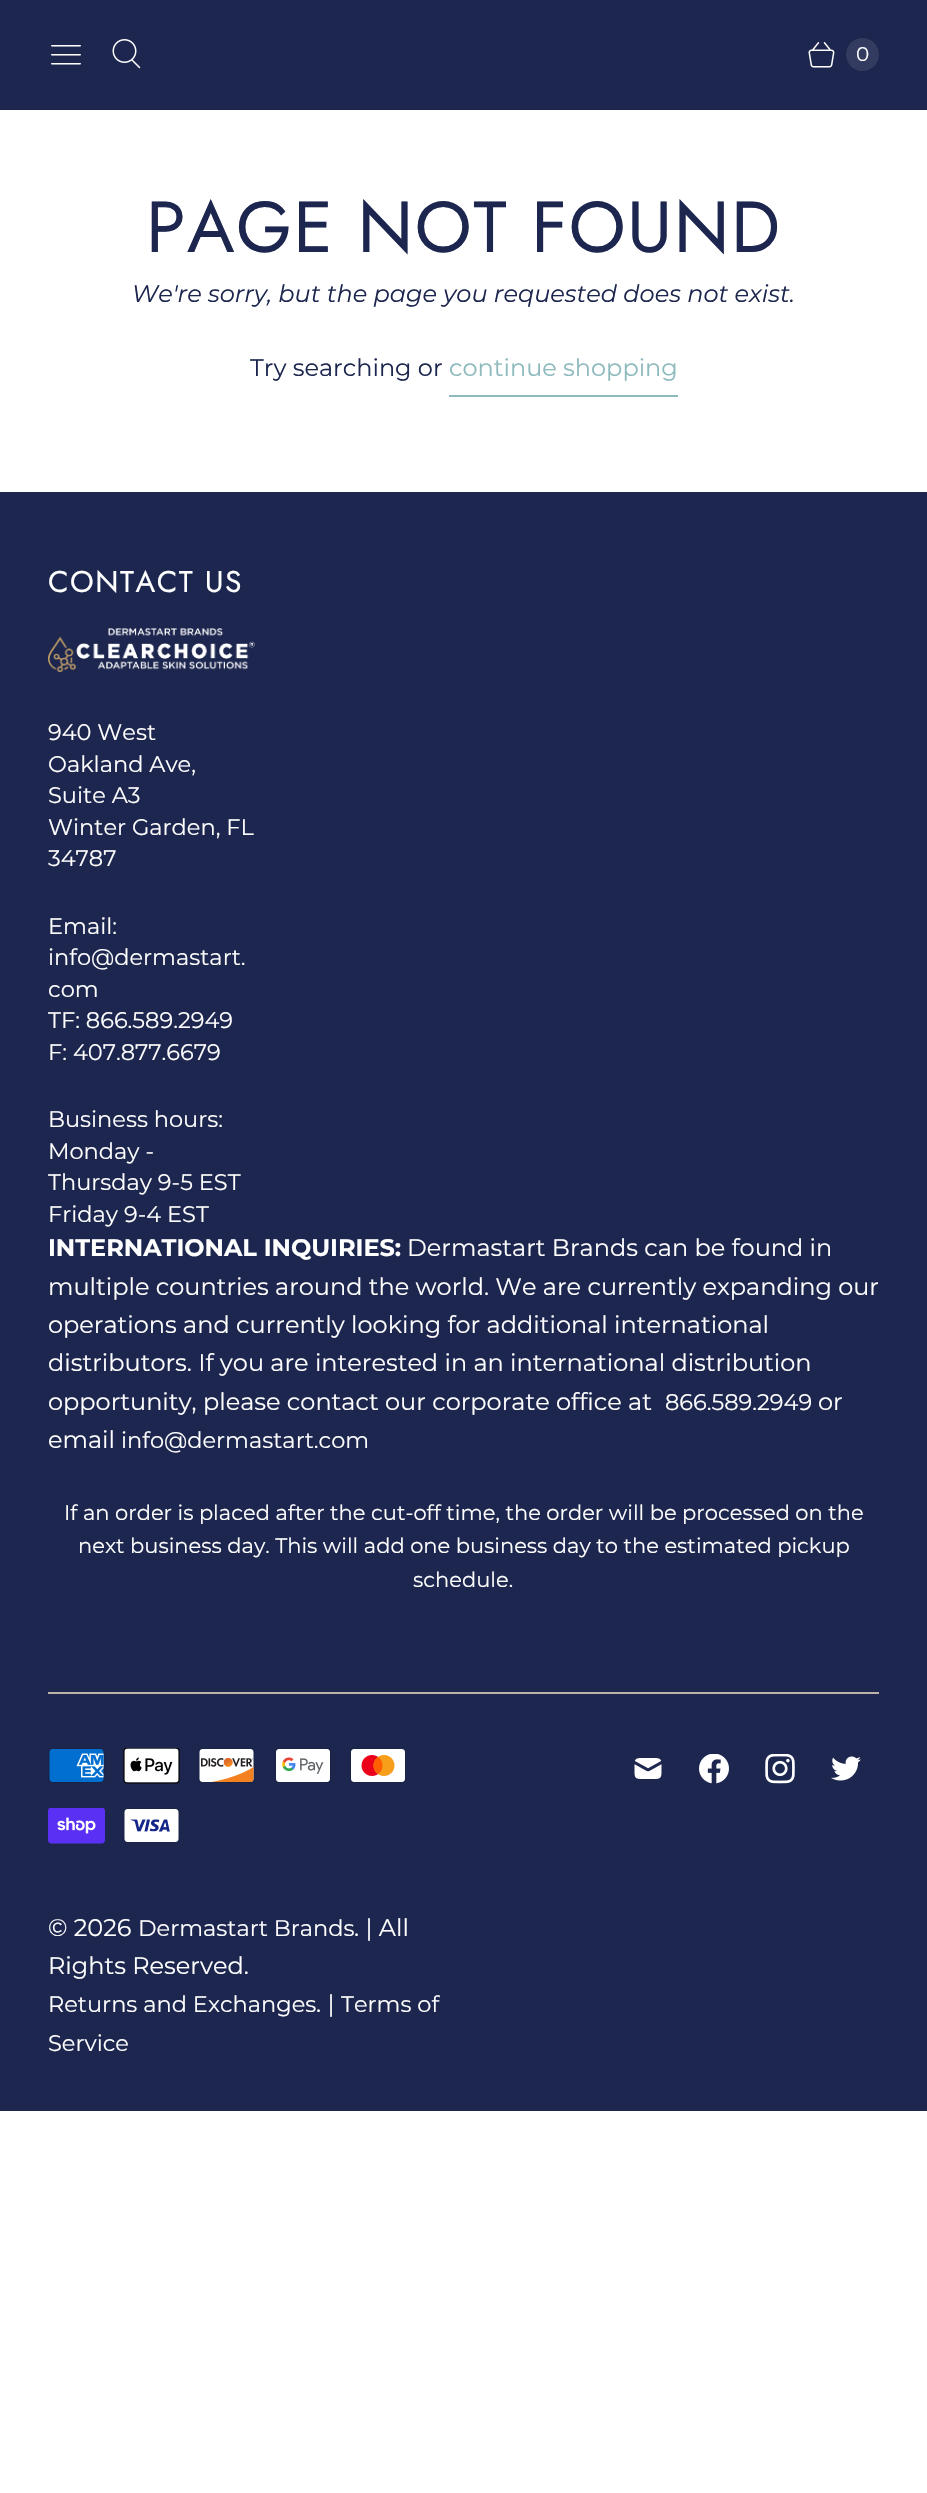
void draw(SkCanvas* c) {
SkPaint p;
p.setAntiAlias(true);
auto F=[&](const char* family, int weight, float size, bool italic = false){SkFontStyle style(weight, SkFontStyle::kNormal_Width,italic ? SkFontStyle::kItalic_Slant : SkFontStyle::kUpright_Slant);SkFont result(fontMgr->matchFamilyStyle(family, style), size);result.setSubpixel(true);return result;};
auto T=[&](const char* s, float x, float y, const SkFont& font){c->drawString(s, x, y, font, p);};
auto L=[&](const char* s, float x, float y, const SkFont& font, const SkPaint& ink, float letter, float word){std::vector<SkGlyphID> glyphs(font.countText(s, strlen(s), SkTextEncoding::kUTF8));std::vector<float> xs(glyphs.size());font.textToGlyphs(s, strlen(s), SkTextEncoding::kUTF8, glyphs);font.getXPos(glyphs, xs, x);float extra = 0;for (size_t i = 0; i < glyphs.size(); i++) {xs[i] += extra;extra += letter + word * (glyphs[i] == font.unicharToGlyph(' '));}c->drawTextBlob(SkTextBlob::MakeFromPosHGlyphs(glyphs, xs, y, font), 0, 0, ink);};
auto R=[&](float x, float y, float w, float h){c->drawRect(SkRect::MakeXYWH(x, y, w, h), p);};
auto I=[&](const char* path, float x, float y, float w, float h){auto image = SkImages::DeferredFromEncodedData(SkData::MakeFromFileName(path));c->drawImageRect(image, SkRect::MakeXYWH(x, y, w, h), SkSamplingOptions());};
c->clear(0xffffffff);
p.setColor(0xff1c264e);
R(0,0,927,110);
I("1.png",51,45,30,20);
I("2.png",112,39,29,30);
I("3.png",808,42,27,26);
p.setColor(0xff333c60);
c->drawCircle(862.5,54.5,16.5,p);
auto f1 = F("Montserrat",100,20);
p.setColor(0xffffffff);
T("0",856,61,f1);
auto f2 = F("Jost",400,72);
p.setColor(0xff1c264e);
L("PAGE NOT FOUND",146,252,f2,p,1.5,0);
auto f3 = F("Montserrat",400,24,true);
T("We're sorry, but the page you requested does not exist.",132,302,f3);
auto f4 = F("Montserrat",100,24);
T("Try searching or",250,376,f4);
p.setColor(0xff8ebabd);
T("continue shopping",449,376,f4);
R(449,395,229,2);
p.setColor(0xff1c264e);
R(0,492,927,1619);
auto f5 = F("Jost",400,30);
p.setColor(0xffffffff);
L("CONTACT US",48,592,f5,p,1.5,0);
I("4.png",48,628,207,44);
auto f6 = F("Montserrat",100,22.5);
T("940 West",48,740,f6);
T("Oakland Ave,",48,772,f6);
T("Suite A3",48,803,f6);
T("Winter Garden, FL",48,835,f6);
T("34787",48,866,f6);
T("Email:",48,934,f6);
T("info@dermastart.",48,965,f6);
T("com",48,997,f6);
T("TF: 866.589.2949",48,1028,f6);
T("F: 407.877.6679",48,1060,f6);
T("Business hours:",48,1127,f6);
T("Monday -",48,1159,f6);
T("Thursday 9-5 EST",48,1190,f6);
T("Friday 9-4 EST",48,1222,f6);
auto f7 = F("Montserrat",700,24);
T("INTERNATIONAL INQUIRIES:",48,1256,f7);
T("Dermastart Brands can be found in",407,1256,f4);
T("multiple countries around the world. We are currently expanding our",48,1295,f4);
T("operations and currently looking for additional international",48,1333,f4);
T("distributors. If you are interested in an international distribution",48,1371,f4);
T("opportunity, please contact our corporate office at",48,1410,f4);
T("866.589.2949",665,1410,f6);
T("or",818,1410,f4);
T("email",48,1448,f4);
T("info@dermastart.com",121,1448,f6);
auto f8 = F("Montserrat",100,21);
T("If an order is placed after the cut-off time, the order will be processed on the",64,1520,f8);
T("next business day. This will add one business day to the estimated pickup",78,1553,f8);
T("schedule.",413,1587,f8);
p.setColor(0xffbfb1a8);
R(48,1692,831,2);
I("5.png",634,1758,28,21);
I("6.png",699,1754,30,30);
I("7.png",765,1754,30,30);
I("8.png",831,1756,30,25);
I("9.png",48,1748,57,35);
I("10.png",123,1748,57,36);
I("11.png",198,1748,57,35);
I("12.png",275,1748,56,35);
I("13.png",350,1748,56,35);
I("14.png",48,1808,57,36);
I("15.png",123,1808,57,35);
p.setColor(0xffffffff);
T("© 2026",48,1936,f4);
T("Dermastart Brands",138,1936,f6);
T(". | All",354,1936,f4);
T("Rights Reserved.",48,1974,f4);
T("Returns and Exchanges",48,2012,f6);
T(". |",316,2012,f4);
T("Terms of",341,2012,f6);
T("Service",48,2051,f6);
}
